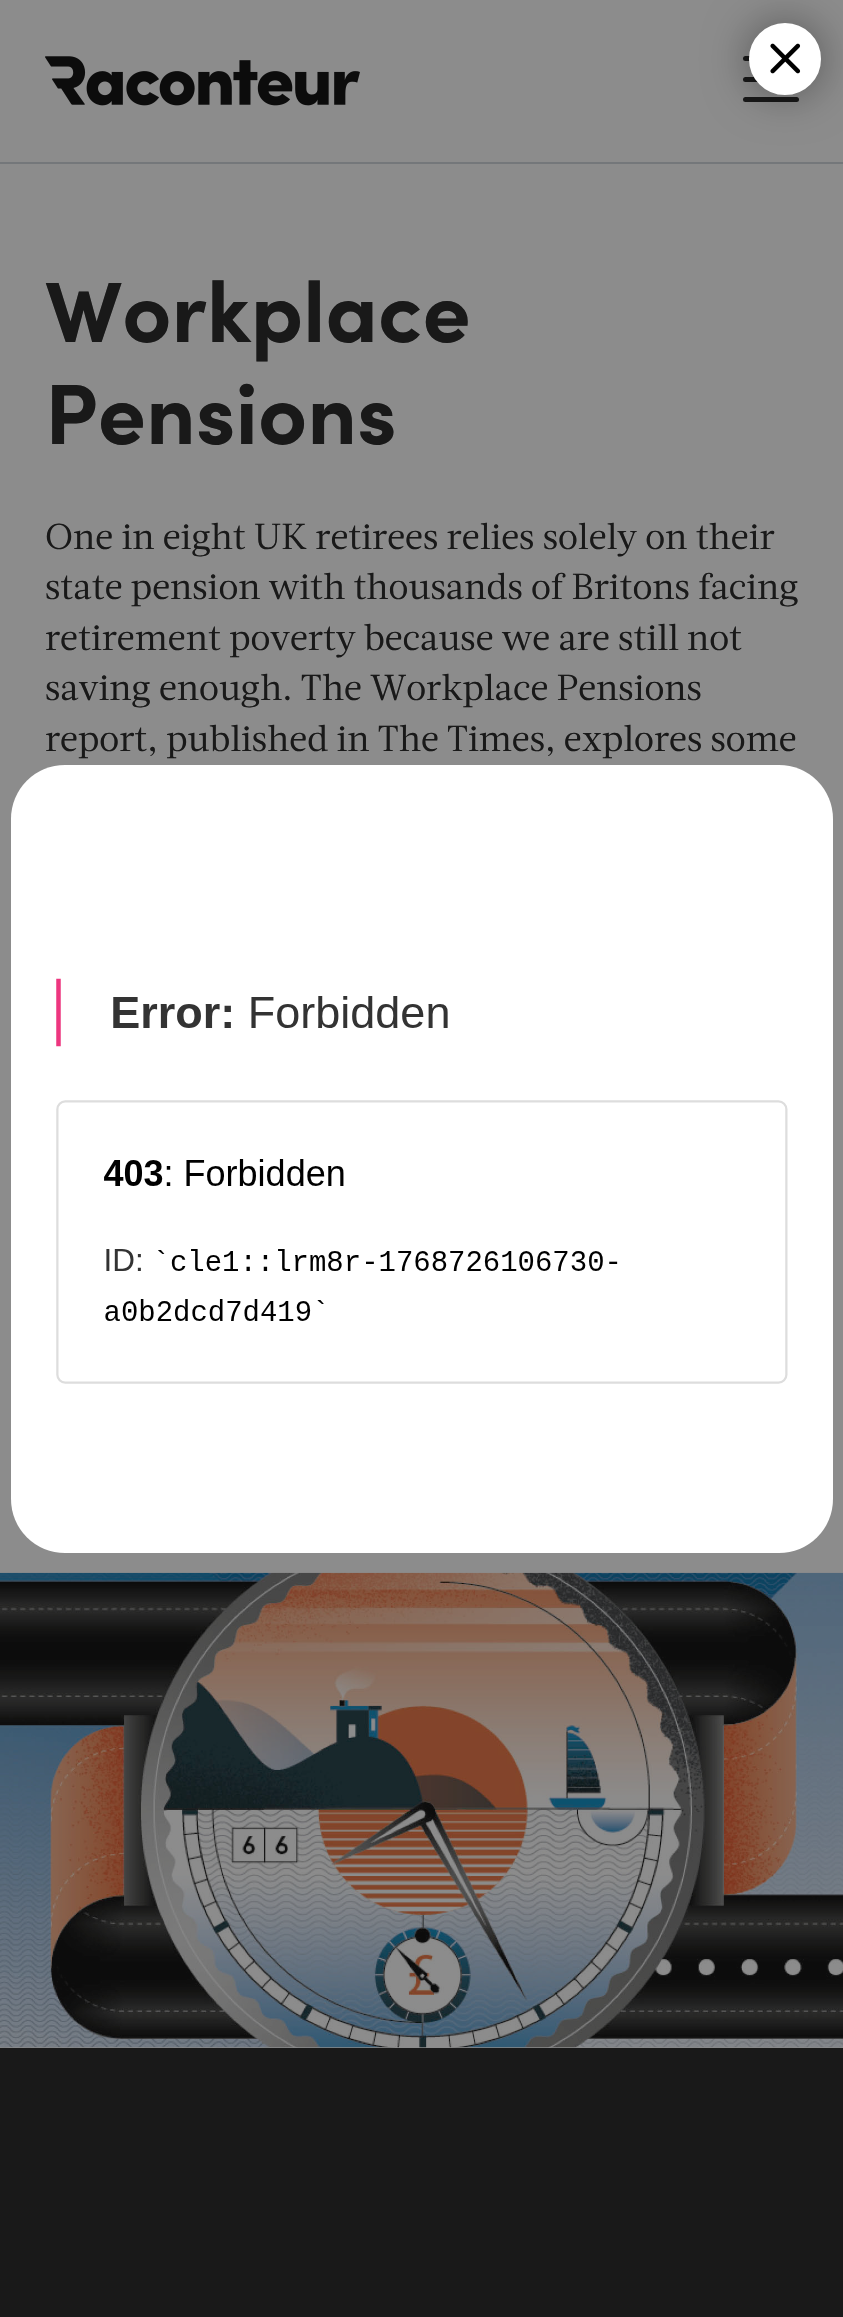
void draw(SkCanvas* c) {
SkPaint p;
p.setAntiAlias(true);
auto F=[&](const char* family, int weight, float size, bool italic = false){SkFontStyle style(weight, SkFontStyle::kNormal_Width,italic ? SkFontStyle::kItalic_Slant : SkFontStyle::kUpright_Slant);SkFont result(fontMgr->matchFamilyStyle(family, style), size);result.setSubpixel(true);return result;};
auto T=[&](const char* s, float x, float y, const SkFont& font){c->drawString(s, x, y, font, p);};
auto R=[&](float x, float y, float w, float h){c->drawRect(SkRect::MakeXYWH(x, y, w, h), p);};
auto Q=[&](float x, float y, float w, float h, float radius){c->drawRoundRect(SkRect::MakeXYWH(x, y, w, h), radius, radius, p);};
auto I=[&](const char* path, float x, float y, float w, float h){auto image = SkImages::DeferredFromEncodedData(SkData::MakeFromFileName(path));c->drawImageRect(image, SkRect::MakeXYWH(x, y, w, h), SkSamplingOptions());};
c->clear(0xff8c8c8c);
p.setColor(0xff74777a);
R(0,162,843,2);
p.setColor(0xff191919);
Q(743,56,56,5,2.5);
Q(743,77,56,5,2.5);
Q(743,97,56,5,2.5);
p.setColor(0x66000000);
p.setMaskFilter(SkMaskFilter::MakeBlur(kNormal_SkBlurStyle, 22.5));
c->drawRoundRect(SkRect::MakeXYWH(749,23,72,72),36,36,p);
p.setMaskFilter(nullptr);
p.setColor(0xffffffff);
c->drawCircle(785,59,35,p);
p.setStroke(true);
p.setStrokeWidth(2);
c->drawCircle(785,59,35,p);
I("1.png",770,43,31,31);
p.setStroke(false);
Q(11,765,822,788,54);
I("2.png",56,978,732,406);
I("3.png",45,56,315,50);
auto f1 = F("Sofia",700,85.5);
p.setColor(0xff191919);
T("Workplace",45,342,f1);
T("Pensions",45,444,f1);
auto f2 = F("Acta",400,36);
T("One in eight UK retirees relies solely on their",45,549,f2);
T("state pension with thousands of Britons facing",45,599,f2);
T("retirement poverty because we are still not",45,650,f2);
T("saving enough. The Workplace Pensions",45,700,f2);
T("report, published in The Times, explores some",45,751,f2);
I("4.png",0,1572,843,476);
R(0,2048,843,269);
}
